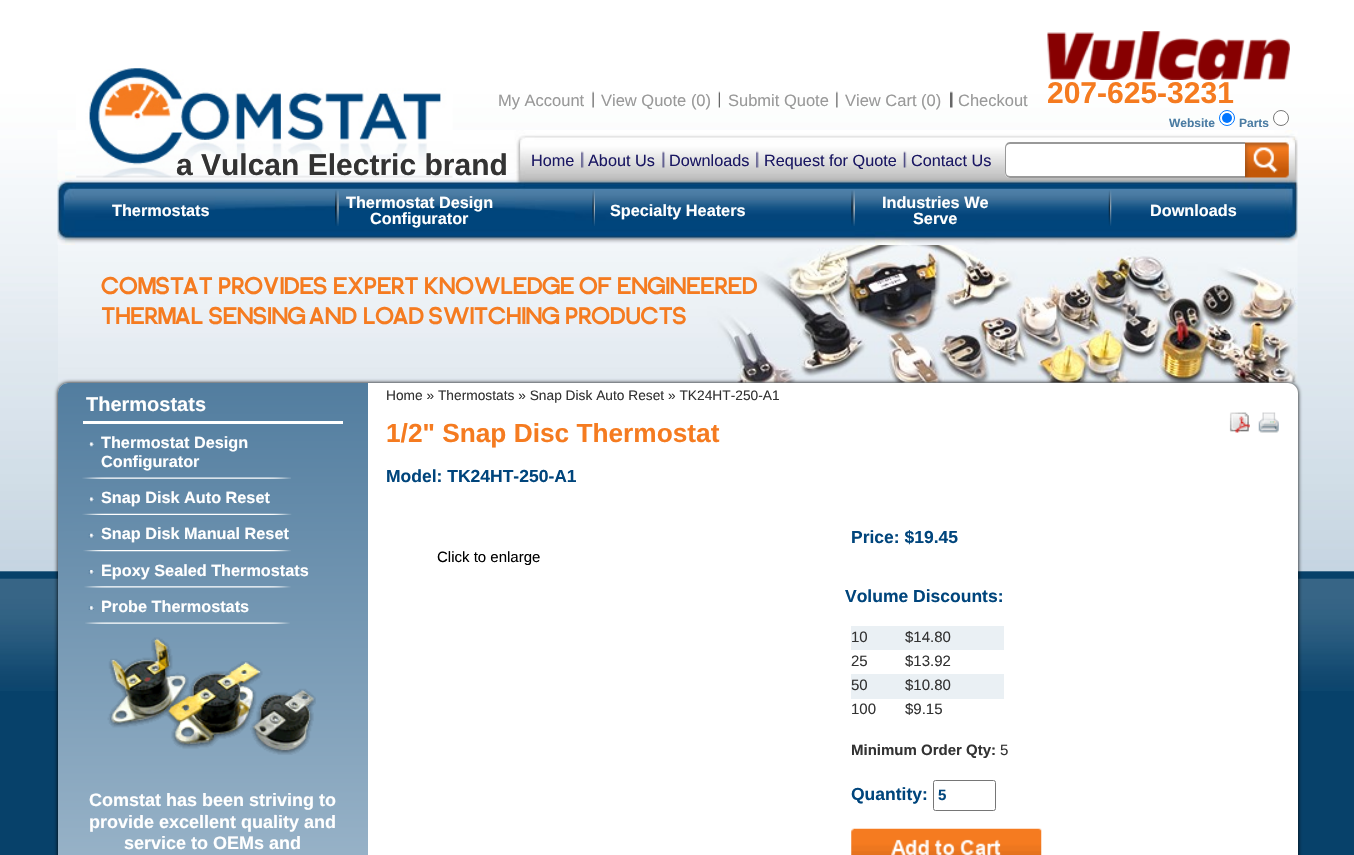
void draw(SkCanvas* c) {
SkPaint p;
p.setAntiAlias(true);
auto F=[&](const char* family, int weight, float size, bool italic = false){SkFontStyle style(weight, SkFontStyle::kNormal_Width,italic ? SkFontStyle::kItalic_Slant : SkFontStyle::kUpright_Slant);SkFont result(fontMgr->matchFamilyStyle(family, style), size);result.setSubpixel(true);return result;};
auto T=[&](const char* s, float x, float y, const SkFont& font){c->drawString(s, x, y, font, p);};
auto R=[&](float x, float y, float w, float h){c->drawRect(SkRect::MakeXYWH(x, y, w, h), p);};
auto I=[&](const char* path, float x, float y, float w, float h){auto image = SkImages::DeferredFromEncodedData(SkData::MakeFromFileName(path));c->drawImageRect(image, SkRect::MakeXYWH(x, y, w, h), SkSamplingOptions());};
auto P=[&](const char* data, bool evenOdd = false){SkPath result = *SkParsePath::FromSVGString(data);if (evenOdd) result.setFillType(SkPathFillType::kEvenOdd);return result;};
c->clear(0xff07416a);
I("1.png",0,0,1354,691);
I("17.png",58,237,1240,146);
I("2.png",57,130,1241,115);
I("3.png",76,68,377,110);
auto f1 = F("Liberation Sans",700,30);
p.setColor(0xff333333);
T("a Vulcan Electric brand",176,175,f1);
auto f2 = F("Liberation Sans",400,16.5);
p.setColor(0xff999999);
T("My Account",498,106,f2);
I("4.png",592,91,2,17);
T("View Quote (0)",601,106,f2);
I("5.png",718,91,2,17);
T("Submit Quote",728,106,f2);
I("6.png",836,91,2,17);
T("View Cart (0)",845,106,f2);
I("7.png",950,91,3,17);
T("Checkout",958,106,f2);
I("8.png",1047,31,243,49);
p.setColor(0xfff57b20);
T("207-625-3231",1047,103,f1);
auto f3 = F("Liberation Sans",700,12);
p.setColor(0xff4a7ba3);
T("Website",1169,127,f3);
p.setColor(0xffffffff);
c->drawCircle(1227,118,7.5,p);
p.setStroke(true);
p.setStrokeWidth(1);
p.setColor(0xff0075ff);
c->drawCircle(1227,118,7.5,p);
p.setStroke(false);
c->drawCircle(1227,118,5,p);
p.setColor(0xff4a7ba3);
T("Parts",1239,127,f3);
p.setColor(0xffffffff);
c->drawCircle(1281,118,7.5,p);
p.setStroke(true);
p.setColor(0xff767676);
c->drawCircle(1281,118,7.5,p);
p.setStroke(false);
p.setColor(0xffffffff);
c->drawPath(P("M1010 143h235v35h-235c-3 0-5-2-5-5v-25c0-3 2-5 5-5z"),p);
p.setColor(0xff999999);
c->drawPath(P("M1010 142h235v36h-235c-3 0-5-3-5-6v-24c0-3 2-6 5-6zm0 2h235v32h-235c-2 0-4-1-4-4v-24c0-3 2-4 4-4z",true),p);
I("9.png",1245,142,44,36);
auto f4 = F("Liberation Sans",400,16.25);
p.setColor(0xff1b1863);
T("Home",531,166,f4);
I("10.png",581,151,3,17);
T("About Us",588,166,f4);
I("11.png",662,151,3,17);
T("Downloads",669,166,f4);
I("10.png",756,151,3,17);
T("Request for Quote",764,166,f4);
I("12.png",903,151,4,17);
T("Contact Us",911,166,f4);
auto f5 = F("Liberation Sans",700,16.25);
p.setColor(0xffffffff);
T("Thermostats",112,216,f5);
I("13.png",335,190,4,36);
T("Thermostat Design",346,208,f5);
T("Configurator",370,224,f5);
I("14.png",592,190,3,36);
T("Specialty Heaters",610,216,f5);
I("15.png",851,190,4,36);
T("Industries We",882,208,f5);
T("Serve",913,224,f5);
I("16.png",1108,190,4,36);
T("Downloads",1150,216,f5);
auto f6 = F("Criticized",400,19.5);
p.setColor(0xfff57b20);
T("COMSTAT",101,294,f6);
T("PROVIDES",218,294,f6);
T("EXPERT",333,294,f6);
T("KNOWLEDGE",424,294,f6);
T("OF",579,294,f6);
T("ENGINEERED",617,294,f6);
T("THERMAL",101,324,f6);
T("SENSING",209,324,f6);
T("AND",310,324,f6);
T("LOAD",363,324,f6);
T("SWITCHING",429,324,f6);
T("PRODUCTS",565,324,f6);
p.setColor(0xff000000);
p.setMaskFilter(SkMaskFilter::MakeBlur(kNormal_SkBlurStyle, 2));
c->drawRoundRect(SkRect::MakeXYWH(58,383,1240,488),10,10,p);
p.setMaskFilter(nullptr);
p.setColor(0xffffffff);
c->drawPath(P("M68 383h1220c5.5 0 10 4.5 10 10v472h-1240v-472c0-5.5 4.5-10 10-10z"),p);
{
const SkColor colors[] = {0xff527d9f,0xffb9ccdb};
const float stops[] = {0,1};
const SkPoint ends[] = {{212,383}, {213,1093}};
p.setShader(SkGradientShader::MakeLinear(ends, colors, stops, 2, SkTileMode::kClamp));
p.setAlpha(255);
}
c->drawPath(P("M68 383h300v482h-310v-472c0-5.5 4.5-10 10-10z"),p);
p.setShader(nullptr);
p.setColor(0xffffffff);
R(83,421,260,3);
auto f7 = F("Liberation Sans",700,20);
T("Thermostats",86,411,f7);
I("18.png",82,477,209,2);
I("19.png",88,442,6,5);
T("Thermostat Design",101,448,f5);
T("Configurator",101,467,f5);
I("20.png",82,513,210,2);
I("21.png",89,497,5,5);
T("Snap Disk Auto Reset",101,503,f5);
I("22.png",83,550,208,2);
I("23.png",88,533,6,5);
T("Snap Disk Manual Reset",101,539,f5);
I("24.png",84,586,207,2);
I("25.png",88,570,6,4);
T("Epoxy Sealed Thermostats",101,576,f5);
I("26.png",85,622,205,2);
I("27.png",88,606,6,4);
T("Probe Thermostats",101,612,f5);
I("28.png",107,637,209,118);
auto f8 = F("Liberation Sans",700,18);
T("Comstat has been striving to",89,806,f8);
T("provide excellent quality and",89,828,f8);
T("service to OEMs and",124,849,f8);
auto f9 = F("Liberation Sans",400,13.75);
p.setColor(0xff333333);
T("Home » Thermostats » Snap Disk Auto Reset » TK24HT-250-A1",386,400,f9);
auto f10 = F("Liberation Sans",700,26.25);
p.setColor(0xfff57b20);
T("1/2\" Snap Disc Thermostat",386,442,f10);
I("29.png",1229,412,21,21);
I("30.png",1258,412,21,21);
auto f11 = F("Liberation Sans",700,17.5);
p.setColor(0xff00457c);
T("Model: TK24HT-250-A1",386,482,f11);
auto f12 = F("Liberation Sans",400,15);
p.setColor(0xff000000);
T("Click to enlarge",437,562,f12);
p.setColor(0xff00457c);
T("Price: $19.45",851,543,f11);
T("Volume Discounts:",845,602,f11);
p.setColor(0xffeaf0f4);
R(851,626,153,24);
p.setColor(0xff333333);
T("10",851,642,f12);
T("$14.80",905,642,f12);
T("25",851,666,f12);
T("$13.92",905,666,f12);
p.setColor(0xffeaf0f4);
R(851,674,153,25);
p.setColor(0xff333333);
T("50",851,690,f12);
T("$10.80",905,690,f12);
T("100",851,714,f12);
T("$9.15",905,714,f12);
auto f13 = F("Liberation Sans",700,15);
T("Minimum Order Qty:",851,755,f13);
T("5",1000,755,f12);
p.setColor(0xff00457c);
T("Quantity:",851,800,f11);
p.setStroke(true);
p.setColor(0xff767676);
c->drawRoundRect(SkRect::MakeXYWH(933.5,780.5,62,30),2,2,p);
p.setStroke(false);
p.setColor(0xff00457c);
T("5",938,800,f13);
I("31.png",851,828,191,27);
}
